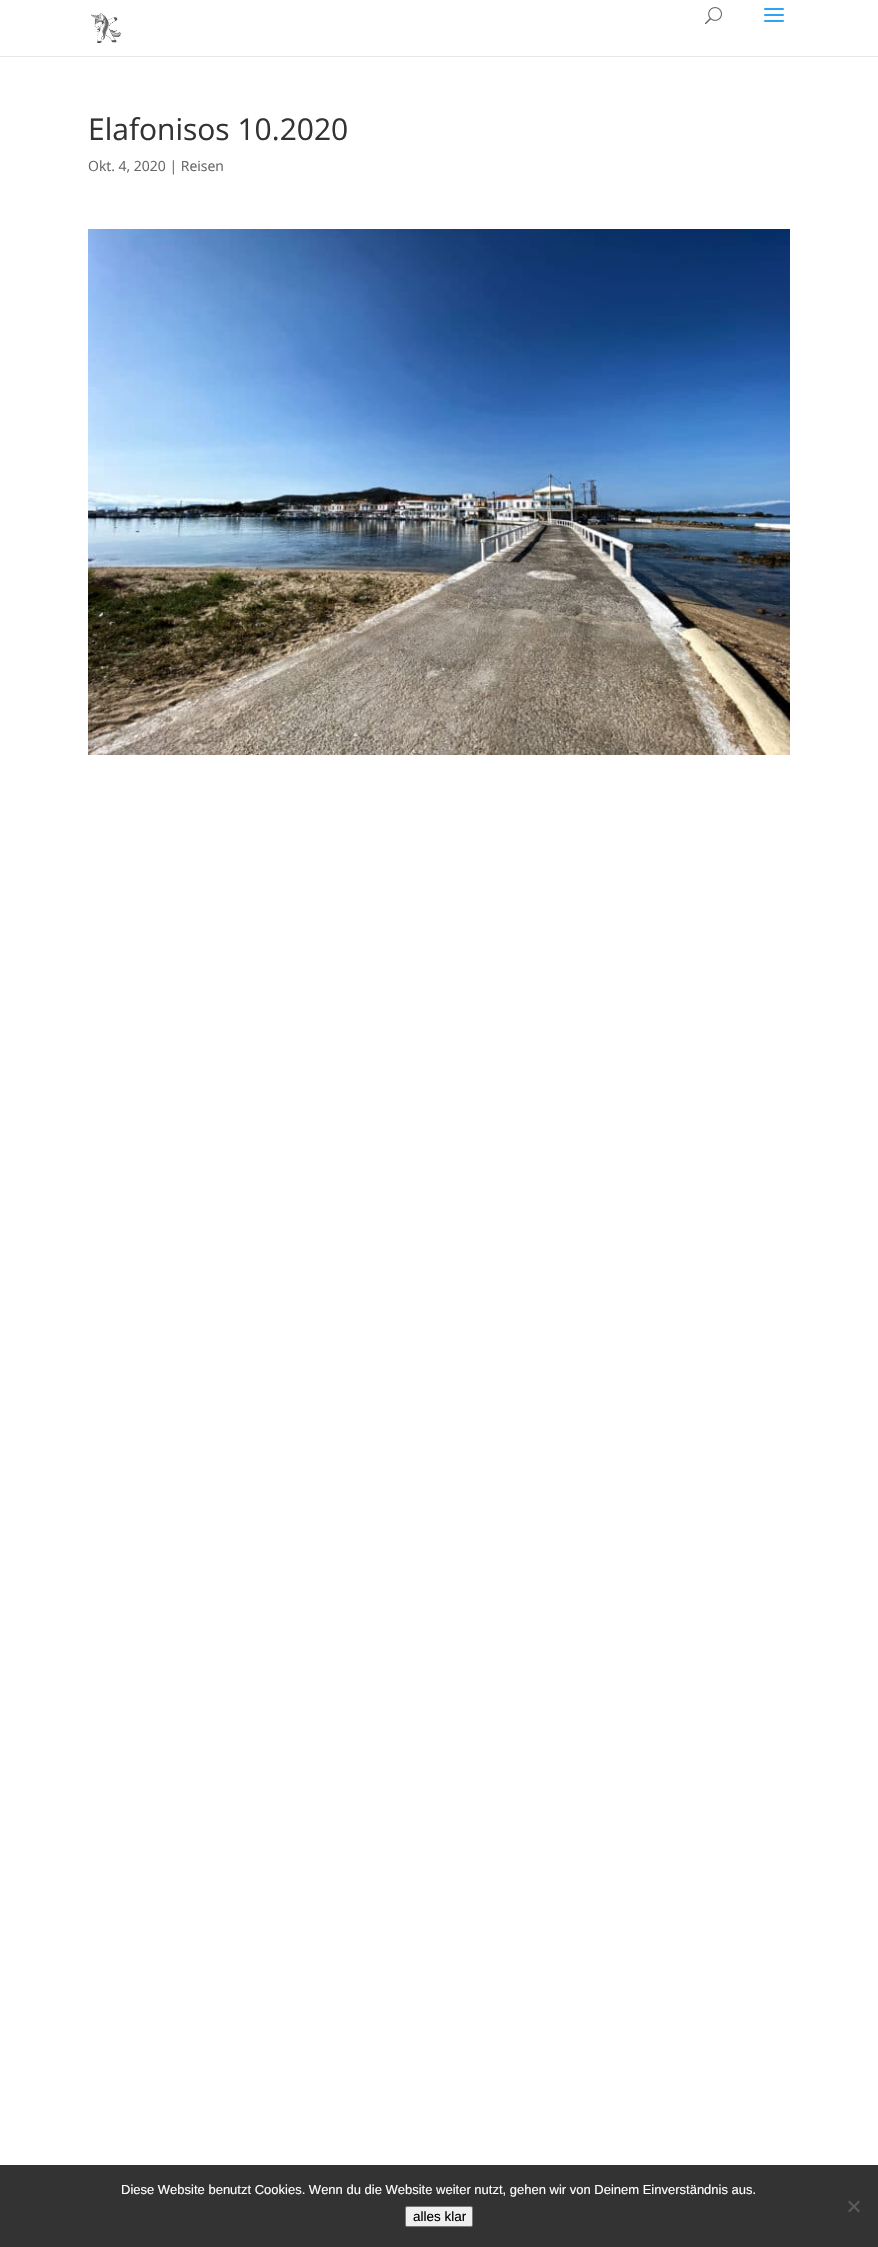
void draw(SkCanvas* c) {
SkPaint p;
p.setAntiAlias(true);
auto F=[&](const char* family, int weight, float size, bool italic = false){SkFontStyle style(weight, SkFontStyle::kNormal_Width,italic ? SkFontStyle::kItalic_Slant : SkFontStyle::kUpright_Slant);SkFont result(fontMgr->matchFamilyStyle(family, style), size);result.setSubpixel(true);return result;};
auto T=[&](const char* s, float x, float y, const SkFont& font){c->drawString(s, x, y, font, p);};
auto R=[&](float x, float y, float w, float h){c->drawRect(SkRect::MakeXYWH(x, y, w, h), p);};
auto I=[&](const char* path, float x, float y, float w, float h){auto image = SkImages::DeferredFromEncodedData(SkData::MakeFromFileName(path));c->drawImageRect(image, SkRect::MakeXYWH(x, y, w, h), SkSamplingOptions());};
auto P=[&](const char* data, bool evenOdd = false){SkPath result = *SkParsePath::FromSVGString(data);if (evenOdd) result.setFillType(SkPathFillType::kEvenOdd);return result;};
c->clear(0xffffffff);
p.setColor(0xffe6e6e6);
R(0,56,878,1);
I("1.png",91,13,30,30);
I("2.png",705,7,17,18);
I("3.png",764,8,20,14);
auto f1 = F("Open Sans",400,30);
p.setColor(0xff333333);
T("Elafonisos 10.2020",88,140,f1);
auto f2 = F("Open Sans",400,14);
p.setColor(0xff666666);
T("Okt. 4, 2020 | Reisen",88,171,f2);
I("4.png",88,229,702,526);
p.setColor(0xff333333);
R(0,2165,878,82);
auto f3 = F("Liberation Sans",400,13);
p.setColor(0xffffffff);
T("Diese Website benutzt Cookies. Wenn du die Website weiter nutzt, gehen wir von Deinem Einverständnis aus.",121,2194,f3);
p.setColor(0xff5a5a5a);
c->drawPath(P("M858.5 2200.5l1.5 1.5l-10.5 10.5l-1.5-1.5z"),p);
c->drawPath(P("M848 2202l1.5-1.5l10.5 10.5l-1.5 1.5z"),p);
p.setColor(0xffefefef);
c->drawRoundRect(SkRect::MakeXYWH(405.5,2206.5,67,20),1.5,1.5,p);
p.setStroke(true);
p.setStrokeWidth(1);
p.setColor(0xff767676);
c->drawRoundRect(SkRect::MakeXYWH(405.5,2206.5,67,20),1.5,1.5,p);
auto f4 = F("Liberation Sans",400,13.5);
p.setStroke(false);
p.setColor(0xff000000);
T("alles klar",413,2221,f4);
}
